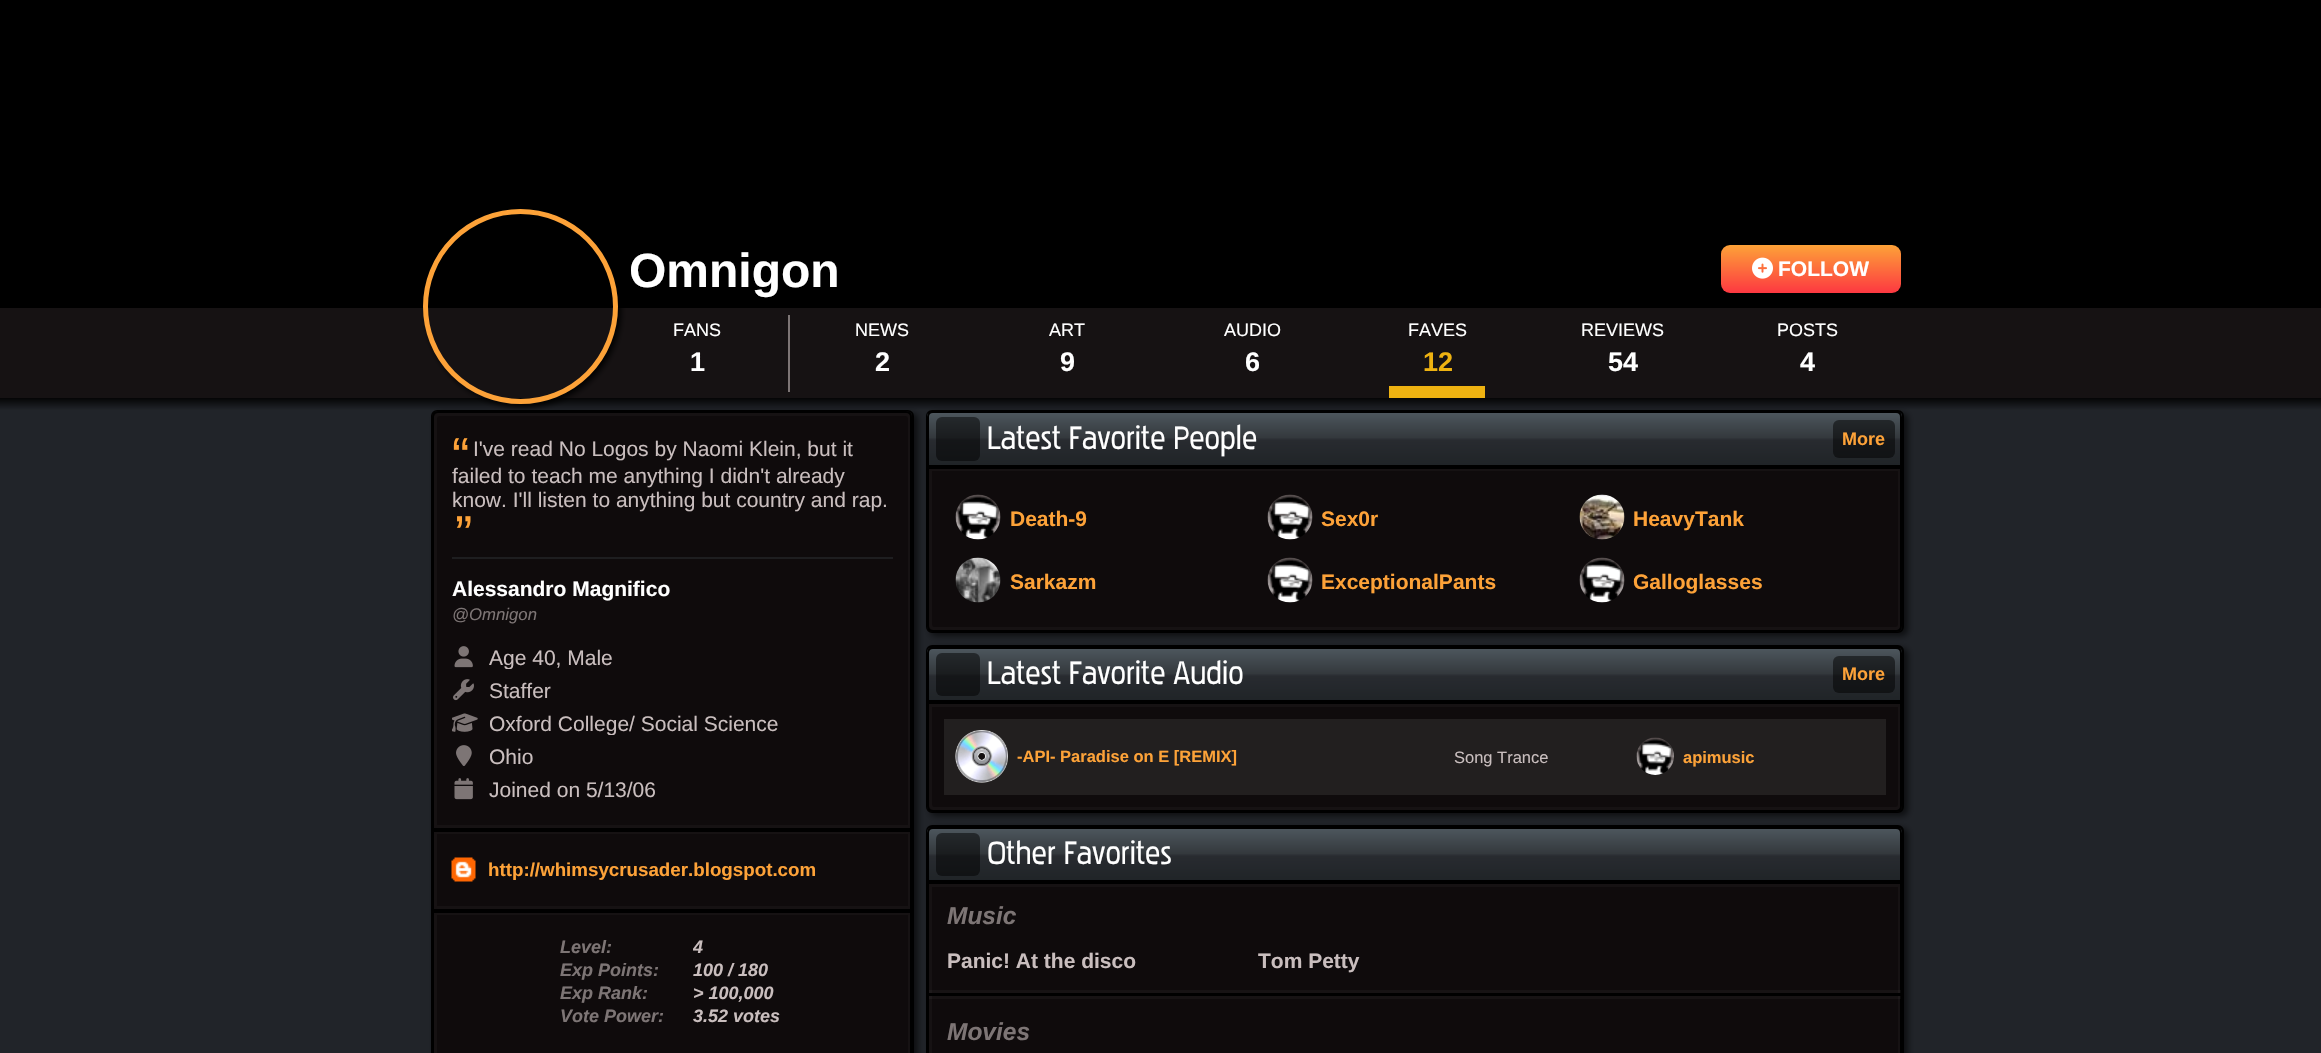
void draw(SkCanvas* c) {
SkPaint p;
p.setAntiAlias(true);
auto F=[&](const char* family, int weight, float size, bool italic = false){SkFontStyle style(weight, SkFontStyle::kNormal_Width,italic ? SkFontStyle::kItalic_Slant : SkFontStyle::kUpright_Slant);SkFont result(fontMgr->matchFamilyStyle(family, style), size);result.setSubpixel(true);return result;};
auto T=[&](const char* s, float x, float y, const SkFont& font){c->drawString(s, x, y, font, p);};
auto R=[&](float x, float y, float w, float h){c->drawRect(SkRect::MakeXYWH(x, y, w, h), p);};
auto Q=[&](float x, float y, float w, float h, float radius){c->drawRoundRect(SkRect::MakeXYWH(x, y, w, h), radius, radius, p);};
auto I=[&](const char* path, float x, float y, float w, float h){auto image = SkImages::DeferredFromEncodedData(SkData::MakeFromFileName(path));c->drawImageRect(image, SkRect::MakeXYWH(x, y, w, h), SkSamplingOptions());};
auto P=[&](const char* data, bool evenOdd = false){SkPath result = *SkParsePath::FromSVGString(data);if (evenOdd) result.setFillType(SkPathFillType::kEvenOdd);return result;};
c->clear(0xff000000);
p.setColor(0xff161213);
R(0,308,2321,90);
{
const SkColor colors[] = {0xff000000,0xff212429};
const float stops[] = {0,.01};
const SkPoint ends[] = {{1161,396}, {1161,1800}};
p.setShader(SkGradientShader::MakeLinear(ends, colors, stops, 2, SkTileMode::kClamp));
p.setAlpha(255);
}
R(0,398,2321,655);
p.setShader(nullptr);
p.setColor(0x99000000);
p.setMaskFilter(SkMaskFilter::MakeBlur(kNormal_SkBlurStyle, 3));
c->drawRoundRect(SkRect::MakeXYWH(930,413,978,223),6,6,p);
p.setMaskFilter(nullptr);
p.setStroke(true);
p.setStrokeWidth(2);
p.setColor(0xff000000);
c->drawRoundRect(SkRect::MakeXYWH(927,411,976,221),5,5,p);
c->save();
c->clipPath(P("M933 411h963c3.5 0 6 2.5 6 6v50h-975v-50c0-3.5 2.5-6 6-6z"),true);
p.setStroke(false);
{
const SkColor colors[] = {0xff4e575e,0xff34393d,0xff282b30,0xff202427};
const float stops[] = {0,.48,.53,1};
const SkPoint ends[] = {{1415,412}, {1415,465}};
p.setShader(SkGradientShader::MakeLinear(ends, colors, stops, 4, SkTileMode::kClamp));
p.setAlpha(255);
}
R(927,413,975,52);
c->restore();
p.setStroke(true);
p.setShader(nullptr);
p.setColor(0xff000000);
c->drawPath(P("M933 412h963c3 0 5 2 5 5v49h-973v-49c0-3 2-5 5-5z"),p);
p.setStroke(false);
p.setColor(0x99000000);
p.setMaskFilter(SkMaskFilter::MakeBlur(kNormal_SkBlurStyle, 3));
c->drawRoundRect(SkRect::MakeXYWH(930,648,978,168),6,6,p);
p.setMaskFilter(nullptr);
p.setColor(0xff000000);
c->drawRoundRect(SkRect::MakeXYWH(927,646,976,166),5,5,p);
p.setStroke(true);
c->drawRoundRect(SkRect::MakeXYWH(927,646,976,166),5,5,p);
c->save();
c->clipPath(P("M933 647h963c3.5 0 6 2.5 6 6v49h-975v-49c0-3.5 2.5-6 6-6z"),true);
p.setStroke(false);
{
const SkColor colors[] = {0xff4e575e,0xff34393d,0xff282b30,0xff202427};
const float stops[] = {0,.48,.53,1};
const SkPoint ends[] = {{1415,648}, {1415,701}};
p.setShader(SkGradientShader::MakeLinear(ends, colors, stops, 4, SkTileMode::kClamp));
p.setAlpha(255);
}
R(927,648,975,52);
c->restore();
p.setStroke(true);
p.setShader(nullptr);
p.setColor(0xff000000);
c->drawPath(P("M933 648h963c3 0 5 2 5 5v48h-973v-48c0-3 2-5 5-5z"),p);
p.setStroke(false);
p.setColor(0x99000000);
p.setMaskFilter(SkMaskFilter::MakeBlur(kNormal_SkBlurStyle, 3));
c->drawRoundRect(SkRect::MakeXYWH(930,828,978,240),6,6,p);
p.setMaskFilter(nullptr);
p.setColor(0xff000000);
c->drawRoundRect(SkRect::MakeXYWH(927,826,976,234),5,5,p);
p.setStroke(true);
c->drawRoundRect(SkRect::MakeXYWH(927,826,976,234),5,5,p);
c->save();
c->clipPath(P("M933 827h963c3.5 0 6 2.5 6 6v49h-975v-49c0-3.5 2.5-6 6-6z"),true);
p.setStroke(false);
{
const SkColor colors[] = {0xff4e575e,0xff34393d,0xff282b30,0xff202427};
const float stops[] = {0,.48,.53,1};
const SkPoint ends[] = {{1415,828}, {1415,881}};
p.setShader(SkGradientShader::MakeLinear(ends, colors, stops, 4, SkTileMode::kClamp));
p.setAlpha(255);
}
R(927,828,975,52);
c->restore();
p.setStroke(true);
p.setShader(nullptr);
p.setColor(0xff000000);
c->drawPath(P("M933 828h963c3 0 5 2 5 5v48h-973v-48c0-3 2-5 5-5z"),p);
p.setStroke(false);
p.setColor(0x99000000);
p.setMaskFilter(SkMaskFilter::MakeBlur(kNormal_SkBlurStyle, 3));
c->drawRoundRect(SkRect::MakeXYWH(435,413,483,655),6,6,p);
p.setMaskFilter(nullptr);
p.setStroke(true);
p.setColor(0xff000000);
c->drawRoundRect(SkRect::MakeXYWH(432,411,481,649),5,5,p);
p.setStroke(false);
p.setColor(0xff0f0b0c);
c->drawPath(P("M438 411h468c3.5 0 6 2.5 6 6v413h-480v-413c0-3.5 2.5-6 6-6z"),p);
p.setStroke(true);
p.setStrokeWidth(3);
p.setColor(0xff161213);
c->drawPath(P("M439 414.5h467c2 0 3.5 1.5 3.5 3.5v408.5h-474v-408.5c0-2 1.5-3.5 3.5-3.5z"),p);
p.setStrokeWidth(2);
p.setColor(0xff000000);
c->drawPath(P("M438 412h468c3 0 5 2 5 5v412h-478v-412c0-3 2-5 5-5z"),p);
c->save();
c->clipPath(P("M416 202h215v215h-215zm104.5 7c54 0 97.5 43.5 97.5 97.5c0 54-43.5 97.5-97.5 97.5c-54 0-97.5-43.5-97.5-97.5c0-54 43.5-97.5 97.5-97.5z",true),true);
p.setStroke(false);
p.setMaskFilter(SkMaskFilter::MakeBlur(kNormal_SkBlurStyle, 3));
c->drawRoundRect(SkRect::MakeXYWH(426,212,195,195),97.5,97.5,p);
p.setMaskFilter(nullptr);
c->restore();
p.setStroke(true);
p.setStrokeWidth(5);
p.setColor(0xfffda238);
c->drawCircle(520.5,306.5,95,p);
auto f1 = F("Liberation Sans",700,48);
p.setStroke(false);
p.setColor(0xffffffff);
T("Omnigon",629,287,f1);
{
const SkColor colors[] = {0xfffda238,0xfffd3841};
const float stops[] = {0,1};
const SkPoint ends[] = {{1811,245}, {1811,293}};
p.setShader(SkGradientShader::MakeLinear(ends, colors, stops, 2, SkTileMode::kClamp));
p.setAlpha(255);
}
Q(1721,245,180,48,9);
I("1.png",1752,257,21,22);
auto f2 = F("Liberation Sans",700,21);
p.setShader(nullptr);
p.setColor(0xffffffff);
T("FOLLOW",1778,276,f2);
auto f3 = F("Liberation Sans",400,18);
T("FANS",673,336,f3);
auto f4 = F("Liberation Sans",700,27);
T("1",690,371,f4);
p.setColor(0xff7d7575);
R(788,315,2,77);
p.setColor(0xffffffff);
T("NEWS",855,336,f3);
T("2",875,371,f4);
T("ART",1049,336,f3);
T("9",1060,371,f4);
T("AUDIO",1224,336,f3);
T("6",1245,371,f4);
T("FAVES",1408,336,f3);
p.setColor(0xffeeb211);
T("12",1423,371,f4);
R(1389,386,96,12);
p.setColor(0xffffffff);
T("REVIEWS",1581,336,f3);
T("54",1608,371,f4);
T("POSTS",1777,336,f3);
T("4",1800,371,f4);
auto f5 = F("Liberation Sans",400,52);
p.setColor(0xfffda238);
T("“",452,474,f5);
auto f6 = F("Liberation Sans",400,21);
p.setColor(0xffc9bebe);
T("I've read No Logos by Naomi Klein, but it",473,456,f6);
T("failed to teach me anything I didn't already",452,483,f6);
T("know. I'll listen to anything but country and rap.",452,507,f6);
p.setColor(0xfffda238);
T("”",455,552,f5);
p.setColor(0xff1e1e20);
R(452,557,441,2);
p.setColor(0xffffffff);
T("Alessandro Magnifico",452,596,f2);
auto f7 = F("Liberation Sans",400,16.75,true);
p.setColor(0xff7d7575);
T("@Omnigon",452,620,f7);
I("2.png",454,646,19,22);
c->save();
c->clipRect(SkRect::MakeXYWH(452,645,441,24));
p.setColor(0xffc9bebe);
T("Age 40, Male",489,665,f6);
c->restore();
I("3.png",453,679,21,22);
T("Staffer",489,698,f6);
I("4.png",452,713,26,19);
c->save();
c->clipRect(SkRect::MakeXYWH(452,711,441,24));
T("Oxford College/ Social Science",489,731,f6);
c->restore();
I("5.png",456,745,16,21);
T("Ohio",489,764,f6);
I("6.png",454,778,19,22);
T("Joined on 5/13/06",489,797,f6);
p.setColor(0xff0f0b0c);
c->drawRect(SkRect::MakeXYWH(435.5,832.5,474,75),p);
p.setStroke(true);
p.setStrokeWidth(3);
p.setColor(0xff161213);
c->drawRect(SkRect::MakeXYWH(435.5,832.5,474,75),p);
p.setStrokeWidth(2);
p.setColor(0xff000000);
c->drawRect(SkRect::MakeXYWH(433,831,478,79),p);
I("7.png",451,857,25,25);
auto f8 = F("Liberation Sans",700,18.75);
p.setStroke(false);
p.setColor(0xfffda238);
T("http://whimsycrusader.blogspot.com",488,876,f8);
p.setColor(0xff0f0b0c);
c->drawRect(SkRect::MakeXYWH(435.5,913.5,474,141),p);
p.setStroke(true);
p.setStrokeWidth(3);
p.setColor(0xff161213);
c->drawRect(SkRect::MakeXYWH(435.5,913.5,474,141),p);
p.setStrokeWidth(2);
p.setColor(0xff000000);
c->drawRect(SkRect::MakeXYWH(433,912,478,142),p);
auto f9 = F("Liberation Sans",700,18,true);
p.setStroke(false);
p.setColor(0xff7d7575);
T("Level:",560,953,f9);
c->save();
c->clipRect(SkRect::MakeXYWH(693,936,200,24));
p.setColor(0xffc9bebe);
T("4",693,953,f9);
c->restore();
p.setColor(0xff7d7575);
T("Exp Points:",560,976,f9);
p.setColor(0xffc9bebe);
T("100 / 180",693,976,f9);
p.setColor(0xff7d7575);
T("Exp Rank:",560,999,f9);
p.setColor(0xffc9bebe);
T("> 100,000",693,999,f9);
p.setColor(0xff7d7575);
T("Vote Power:",560,1022,f9);
p.setColor(0xffc9bebe);
T("3.52 votes",693,1022,f9);
p.setColor(0x80000000);
Q(936,417,44,44,6);
auto f10 = F("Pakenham",400,33);
p.setColor(0xffffffff);
T("Latest Favorite People",987,449,f10);
p.setColor(0x80000000);
Q(1833,420,62,38,6);
auto f11 = F("Liberation Sans",700,18);
p.setColor(0xfffda238);
T("More",1842,445,f11);
p.setColor(0xff0f0b0c);
c->drawPath(P("M927 467h975v159c0 3.5-2.5 6-6 6h-963c-3.5 0-6-2.5-6-6z"),p);
p.setStroke(true);
p.setStrokeWidth(3);
p.setColor(0xff161213);
c->drawPath(P("M930.5 469.5h969v155.5c0 2-1.5 3.5-3.5 3.5h-962c-2 0-3.5-1.5-3.5-3.5z"),p);
p.setStrokeWidth(2);
p.setColor(0xff000000);
c->drawPath(P("M928 468h973v158c0 3-2 5-5 5h-963c-3 0-5-2-5-5z"),p);
I("8.png",955,494,46,46);
p.setStroke(false);
p.setColor(0xfffda238);
T("Death-9",1010,526,f2);
I("9.png",1267,494,46,46);
T("Sex0r",1321,526,f2);
I("10.png",1579,494,46,46);
T("HeavyTank",1633,526,f2);
I("11.png",955,557,46,46);
T("Sarkazm",1010,589,f2);
I("9.png",1267,557,46,46);
T("ExceptionalPants",1321,589,f2);
I("8.png",1579,557,46,46);
T("Galloglasses",1633,589,f2);
p.setColor(0x80000000);
Q(936,653,44,43,6);
p.setColor(0xffffffff);
T("Latest Favorite Audio",987,684,f10);
p.setColor(0x80000000);
Q(1833,656,62,37,6);
p.setColor(0xfffda238);
T("More",1842,680,f11);
p.setColor(0xff0f0b0c);
c->drawPath(P("M927 702h975v104c0 3.5-2.5 6-6 6h-963c-3.5 0-6-2.5-6-6z"),p);
p.setStroke(true);
p.setStrokeWidth(3);
p.setColor(0xff161213);
c->drawPath(P("M930.5 705.5h969v99.5c0 2-1.5 3.5-3.5 3.5h-962c-2 0-3.5-1.5-3.5-3.5z"),p);
p.setStrokeWidth(2);
p.setColor(0xff000000);
c->drawPath(P("M928 703h973v103c0 3-2 5-5 5h-963c-3 0-5-2-5-5z"),p);
p.setStroke(false);
p.setColor(0xff221f1f);
R(944,719,942,76);
I("12.png",955,730,53,53);
auto f12 = F("Liberation Sans",700,16.5);
p.setColor(0xfffda238);
T("-API- Paradise on E [REMIX]",1017,762,f12);
auto f13 = F("Liberation Sans",400,16.5);
p.setColor(0xffc9bebe);
T("Song Trance",1454,763,f13);
I("13.png",1636,737,38,38);
p.setColor(0xfffda238);
T("apimusic",1683,763,f12);
p.setColor(0x80000000);
Q(936,833,44,43,6);
p.setColor(0xffffffff);
T("Other Favorites",987,864,f10);
p.setColor(0xff0f0b0c);
c->drawRect(SkRect::MakeXYWH(930.5,885.5,969,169),p);
p.setStroke(true);
p.setStrokeWidth(3);
p.setColor(0xff161213);
c->drawRect(SkRect::MakeXYWH(930.5,885.5,969,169),p);
p.setStrokeWidth(2);
p.setColor(0xff000000);
c->drawRect(SkRect::MakeXYWH(928,883,973,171),p);
auto f14 = F("Liberation Sans",700,24.5,true);
p.setStroke(false);
p.setColor(0xff7d7575);
T("Music",947,924,f14);
p.setColor(0xffc9bebe);
T("Panic! At the disco",947,968,f2);
T("Tom Petty",1258,968,f2);
p.setColor(0x08ffffff);
R(929,990,972,9);
p.setColor(0xff000000);
R(929,993,972,3);
p.setColor(0xff7d7575);
T("Movies",947,1040,f14);
}
